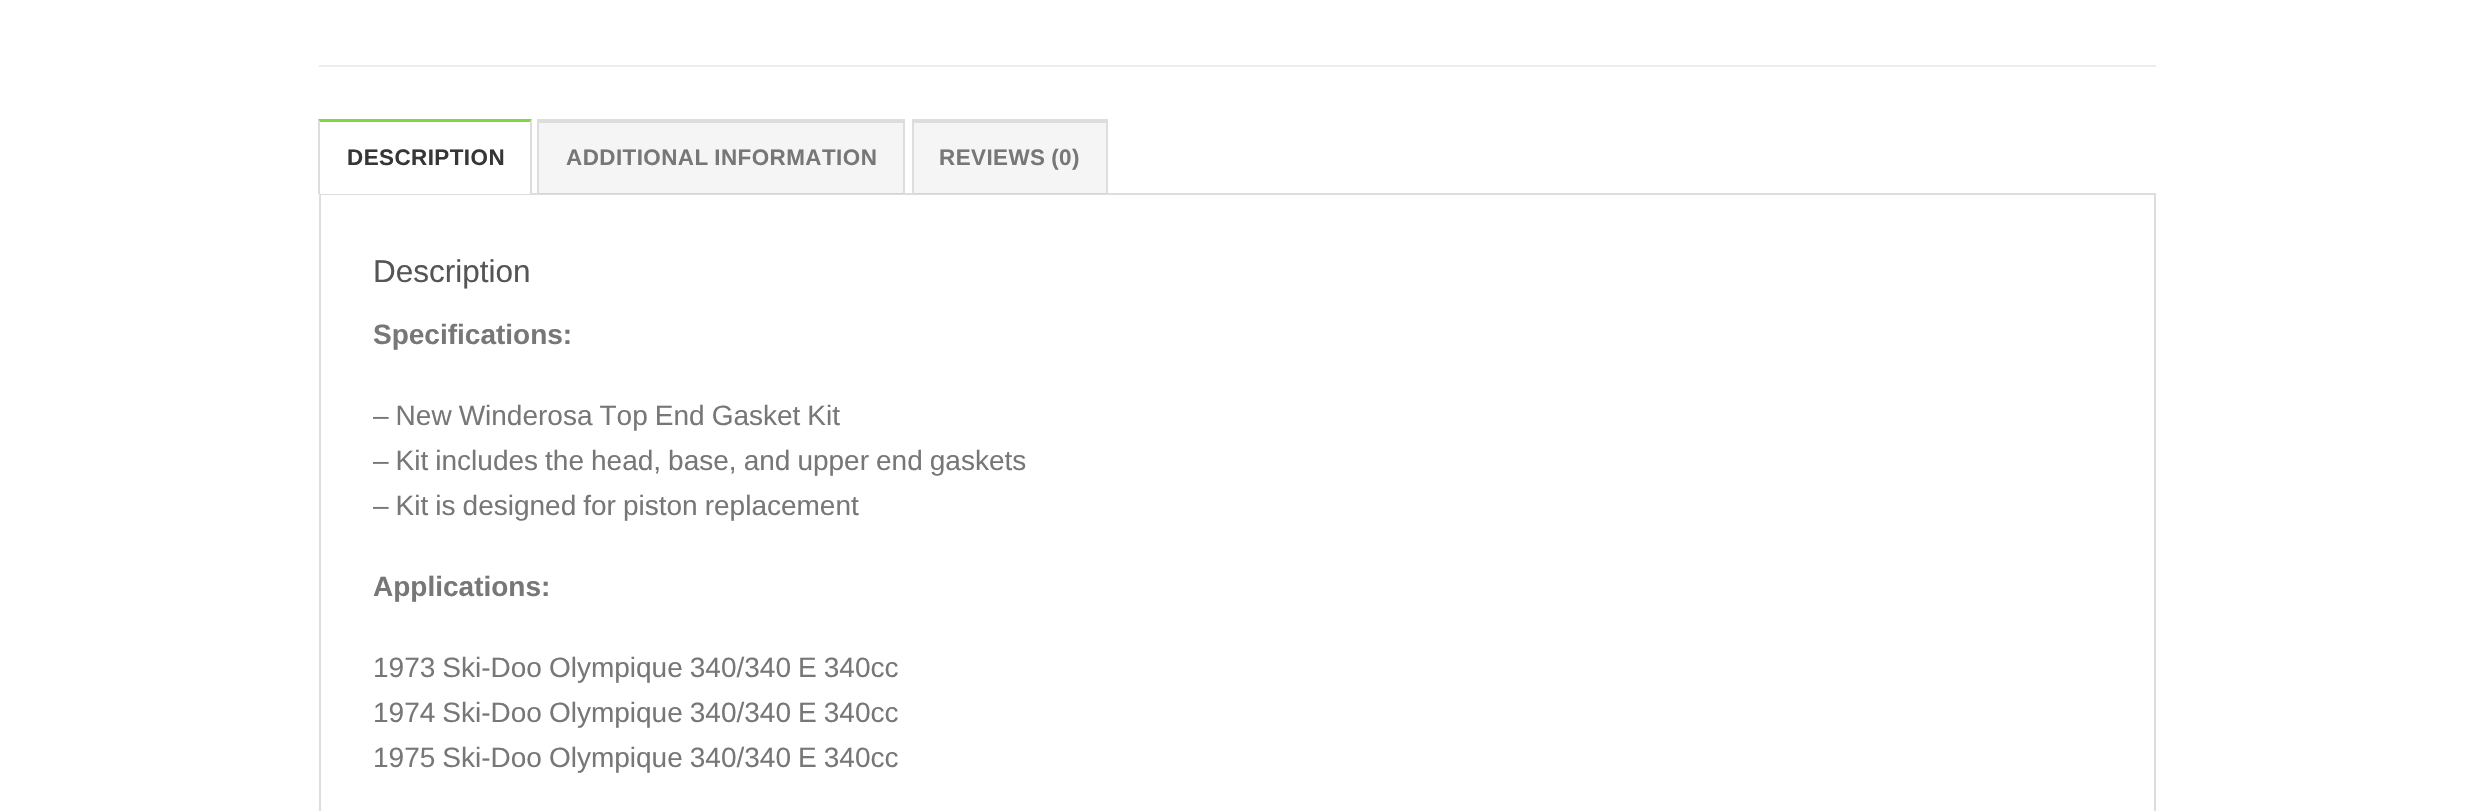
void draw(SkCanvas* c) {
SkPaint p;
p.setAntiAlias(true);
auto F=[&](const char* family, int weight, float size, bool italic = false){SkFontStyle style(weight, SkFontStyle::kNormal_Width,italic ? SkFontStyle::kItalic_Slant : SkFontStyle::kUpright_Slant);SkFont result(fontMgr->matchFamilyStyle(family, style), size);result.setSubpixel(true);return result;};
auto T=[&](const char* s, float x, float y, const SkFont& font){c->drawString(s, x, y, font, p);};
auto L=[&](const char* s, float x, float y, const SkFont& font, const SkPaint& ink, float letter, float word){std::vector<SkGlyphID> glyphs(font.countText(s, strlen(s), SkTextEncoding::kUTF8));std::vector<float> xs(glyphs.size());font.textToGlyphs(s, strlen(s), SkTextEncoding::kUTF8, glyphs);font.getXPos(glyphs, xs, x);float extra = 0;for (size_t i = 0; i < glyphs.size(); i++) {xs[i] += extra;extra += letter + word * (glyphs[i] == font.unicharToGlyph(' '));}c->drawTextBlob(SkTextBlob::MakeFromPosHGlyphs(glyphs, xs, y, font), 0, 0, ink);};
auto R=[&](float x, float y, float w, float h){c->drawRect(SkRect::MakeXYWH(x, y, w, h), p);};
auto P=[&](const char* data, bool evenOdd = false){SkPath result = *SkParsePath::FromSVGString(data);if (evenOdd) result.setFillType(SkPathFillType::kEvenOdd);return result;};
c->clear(0xffffffff);
p.setColor(0xffececec);
R(319,65,1837,2);
p.setStroke(true);
p.setStrokeWidth(2);
p.setColor(0xffdddddd);
c->drawRect(SkRect::MakeXYWH(320,194,1835,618),p);
p.setStroke(false);
p.setColor(0xffffffff);
R(319,193,213,1);
p.setColor(0xff81d742);
c->drawPath(P("M318 119h214l-2 3h-210z"),p);
p.setColor(0xffdddddd);
c->drawPath(P("M532 119v75h-2v-72z"),p);
c->drawPath(P("M318 194v-75l2 3v72z"),p);
auto f1 = F("Liberation Sans",700,22.4);
p.setColor(0xff363636);
L("DESCRIPTION",347,165,f1,p,.45,0);
p.setColor(0x0a000000);
R(539,123,364,71);
p.setColor(0xffdddddd);
R(537,119,368,4);
R(903,119,2,75);
R(537,119,2,75);
p.setColor(0xff777777);
L("ADDITIONAL INFORMATION",566,165,f1,p,.45,-1);
p.setColor(0x0a000000);
R(914,123,192,71);
p.setColor(0xffdddddd);
R(912,119,196,4);
R(1106,119,2,75);
R(912,119,2,75);
p.setColor(0xff777777);
L("REVIEWS (0)",939,165,f1,p,.45,-1);
auto f2 = F("Liberation Sans",400,31.5);
p.setColor(0xff555555);
T("Description",373,282,f2);
auto f3 = F("Liberation Sans",700,28);
p.setColor(0xff777777);
T("Specifications:",373,344,f3);
auto f4 = F("Liberation Sans",400,28);
L("– New Winderosa Top End Gasket Kit",373,425,f4,p,0,-.75);
L("– Kit includes the head, base, and upper end gaskets",373,470,f4,p,0,-.75);
L("– Kit is designed for piston replacement",373,515,f4,p,0,-.75);
T("Applications:",373,596,f3);
L("1973 Ski-Doo Olympique 340/340 E 340cc",373,677,f4,p,0,-.75);
L("1974 Ski-Doo Olympique 340/340 E 340cc",373,722,f4,p,0,-.75);
L("1975 Ski-Doo Olympique 340/340 E 340cc",373,767,f4,p,0,-.75);
}
